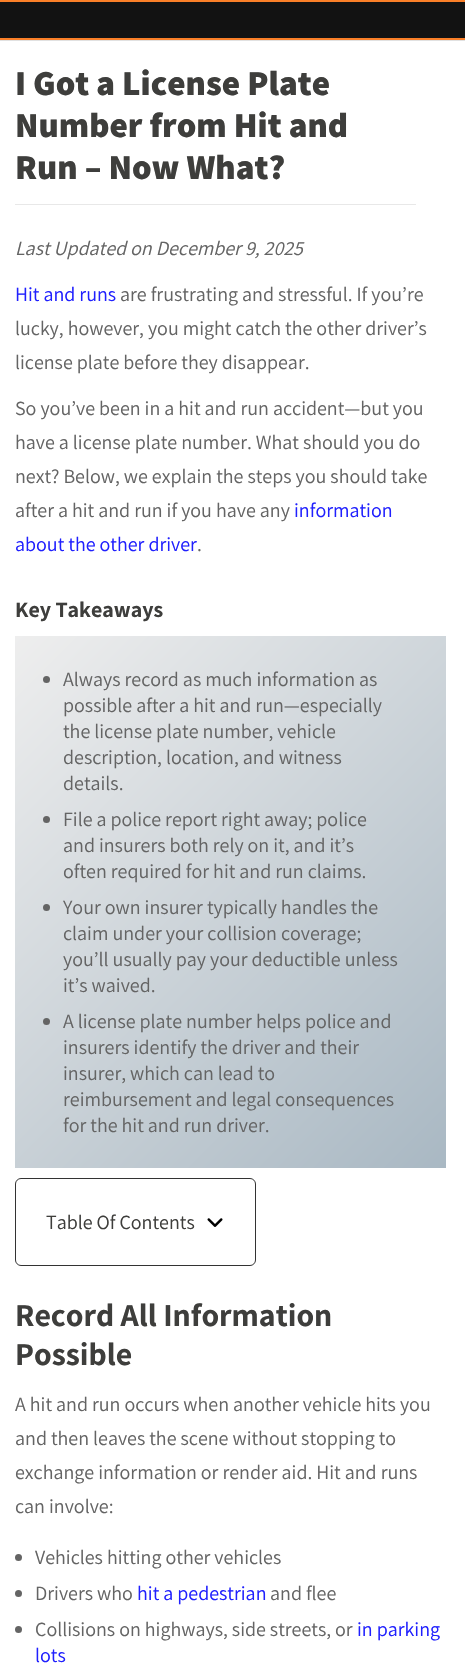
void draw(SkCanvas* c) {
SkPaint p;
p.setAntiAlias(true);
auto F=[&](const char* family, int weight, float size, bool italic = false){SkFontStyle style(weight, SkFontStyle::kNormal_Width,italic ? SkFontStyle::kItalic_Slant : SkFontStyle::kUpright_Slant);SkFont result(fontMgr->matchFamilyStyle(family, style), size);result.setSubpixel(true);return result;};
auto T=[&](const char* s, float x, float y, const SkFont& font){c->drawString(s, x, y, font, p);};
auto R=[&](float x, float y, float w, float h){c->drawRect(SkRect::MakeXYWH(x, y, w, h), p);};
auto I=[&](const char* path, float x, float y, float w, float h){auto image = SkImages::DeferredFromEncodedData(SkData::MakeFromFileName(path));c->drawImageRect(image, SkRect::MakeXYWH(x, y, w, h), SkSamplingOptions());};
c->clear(0xffffffff);
p.setColor(0xffe1e1e1);
R(0,40,465,1);
p.setColor(0xff121212);
R(0,2,465,36);
p.setColor(0xfffa7f28);
R(0,0,465,2);
R(0,38,465,2);
p.setColor(0xffe8e8e8);
R(15,204,401,1);
auto f1 = F("Assistant",200,35);
p.setColor(0xff3e3e3c);
T("I Got a License Plate",15,95,f1);
T("Number from Hit and",15,137,f1);
T("Run – Now What?",15,179,f1);
auto f2 = F("Assistant",200,20,true);
p.setColor(0xff646464);
T("Last Updated on December 9, 2025",15,255,f2);
auto f3 = F("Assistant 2",200,20);
p.setColor(0xff2020fe);
T("Hit and runs",15,301,f3);
p.setColor(0xff646464);
T("are frustrating and stressful. If you’re",120,301,f3);
T("lucky, however, you might catch the other driver’s",15,335,f3);
T("license plate before they disappear.",15,369,f3);
T("So you’ve been in a hit and run accident—but you",15,415,f3);
T("have a license plate number. What should you do",15,449,f3);
T("next? Below, we explain the steps you should take",15,483,f3);
T("after a hit and run if you have any",15,517,f3);
p.setColor(0xff2020fe);
T("information",294,517,f3);
T("about the other driver",15,551,f3);
p.setColor(0xff646464);
T(".",197,551,f3);
auto f4 = F("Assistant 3",200,22);
p.setColor(0xff3e3e3c);
T("Key Takeaways",15,617,f4);
{
const SkColor colors[] = {0xffeeeeee,0xffa9b8c3};
const float stops[] = {0,1};
const SkPoint ends[] = {{-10,661}, {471,1143}};
p.setShader(SkGradientShader::MakeLinear(ends, colors, stops, 2, SkTileMode::kClamp));
p.setAlpha(255);
}
R(15,636,431,532);
p.setShader(nullptr);
p.setColor(0xff646464);
c->drawCircle(46.5,679.5,3.5,p);
T("Always record as much information as",63,686,f3);
T("possible after a hit and run—especially",63,712,f3);
T("the license plate number, vehicle",63,738,f3);
T("description, location, and witness",63,764,f3);
T("details.",63,790,f3);
c->drawCircle(46.5,819.5,3.5,p);
T("File a police report right away; police",63,826,f3);
T("and insurers both rely on it, and it’s",63,852,f3);
T("often required for hit and run claims.",63,878,f3);
c->drawCircle(46.5,907.5,3.5,p);
T("Your own insurer typically handles the",63,914,f3);
T("claim under your collision coverage;",63,940,f3);
T("you’ll usually pay your deductible unless",63,966,f3);
T("it’s waived.",63,992,f3);
c->drawCircle(46.5,1021.5,3.5,p);
T("A license plate number helps police and",63,1028,f3);
T("insurers identify the driver and their",63,1054,f3);
T("insurer, which can lead to",63,1080,f3);
T("reimbursement and legal consequences",63,1106,f3);
T("for the hit and run driver.",63,1132,f3);
p.setStroke(true);
p.setStrokeWidth(1);
p.setColor(0xff333333);
c->drawRoundRect(SkRect::MakeXYWH(15.5,1178.5,240,87),5.5,5.5,p);
p.setStroke(false);
p.setColor(0xff3e3e3c);
T("Table Of Contents",46,1229,f3);
I("1.png",207,1218,16,9);
auto f5 = F("Assistant 3",200,32);
T("Record All Information",15,1326,f5);
T("Possible",15,1365,f5);
p.setColor(0xff646464);
T("A hit and run occurs when another vehicle hits you",15,1411,f3);
T("and then leaves the scene without stopping to",15,1445,f3);
T("exchange information or render aid. Hit and runs",15,1479,f3);
T("can involve:",15,1513,f3);
c->drawCircle(18.5,1557.5,3.5,p);
T("Vehicles hitting other vehicles",35,1564,f3);
c->drawCircle(18.5,1593.5,3.5,p);
T("Drivers who",35,1600,f3);
p.setColor(0xff2020fe);
T("hit a pedestrian",137,1600,f3);
p.setColor(0xff646464);
T("and flee",270,1600,f3);
c->drawCircle(18.5,1629.5,3.5,p);
T("Collisions on highways, side streets, or",35,1636,f3);
p.setColor(0xff2020fe);
T("in parking",357,1636,f3);
T("lots",35,1662,f3);
}
